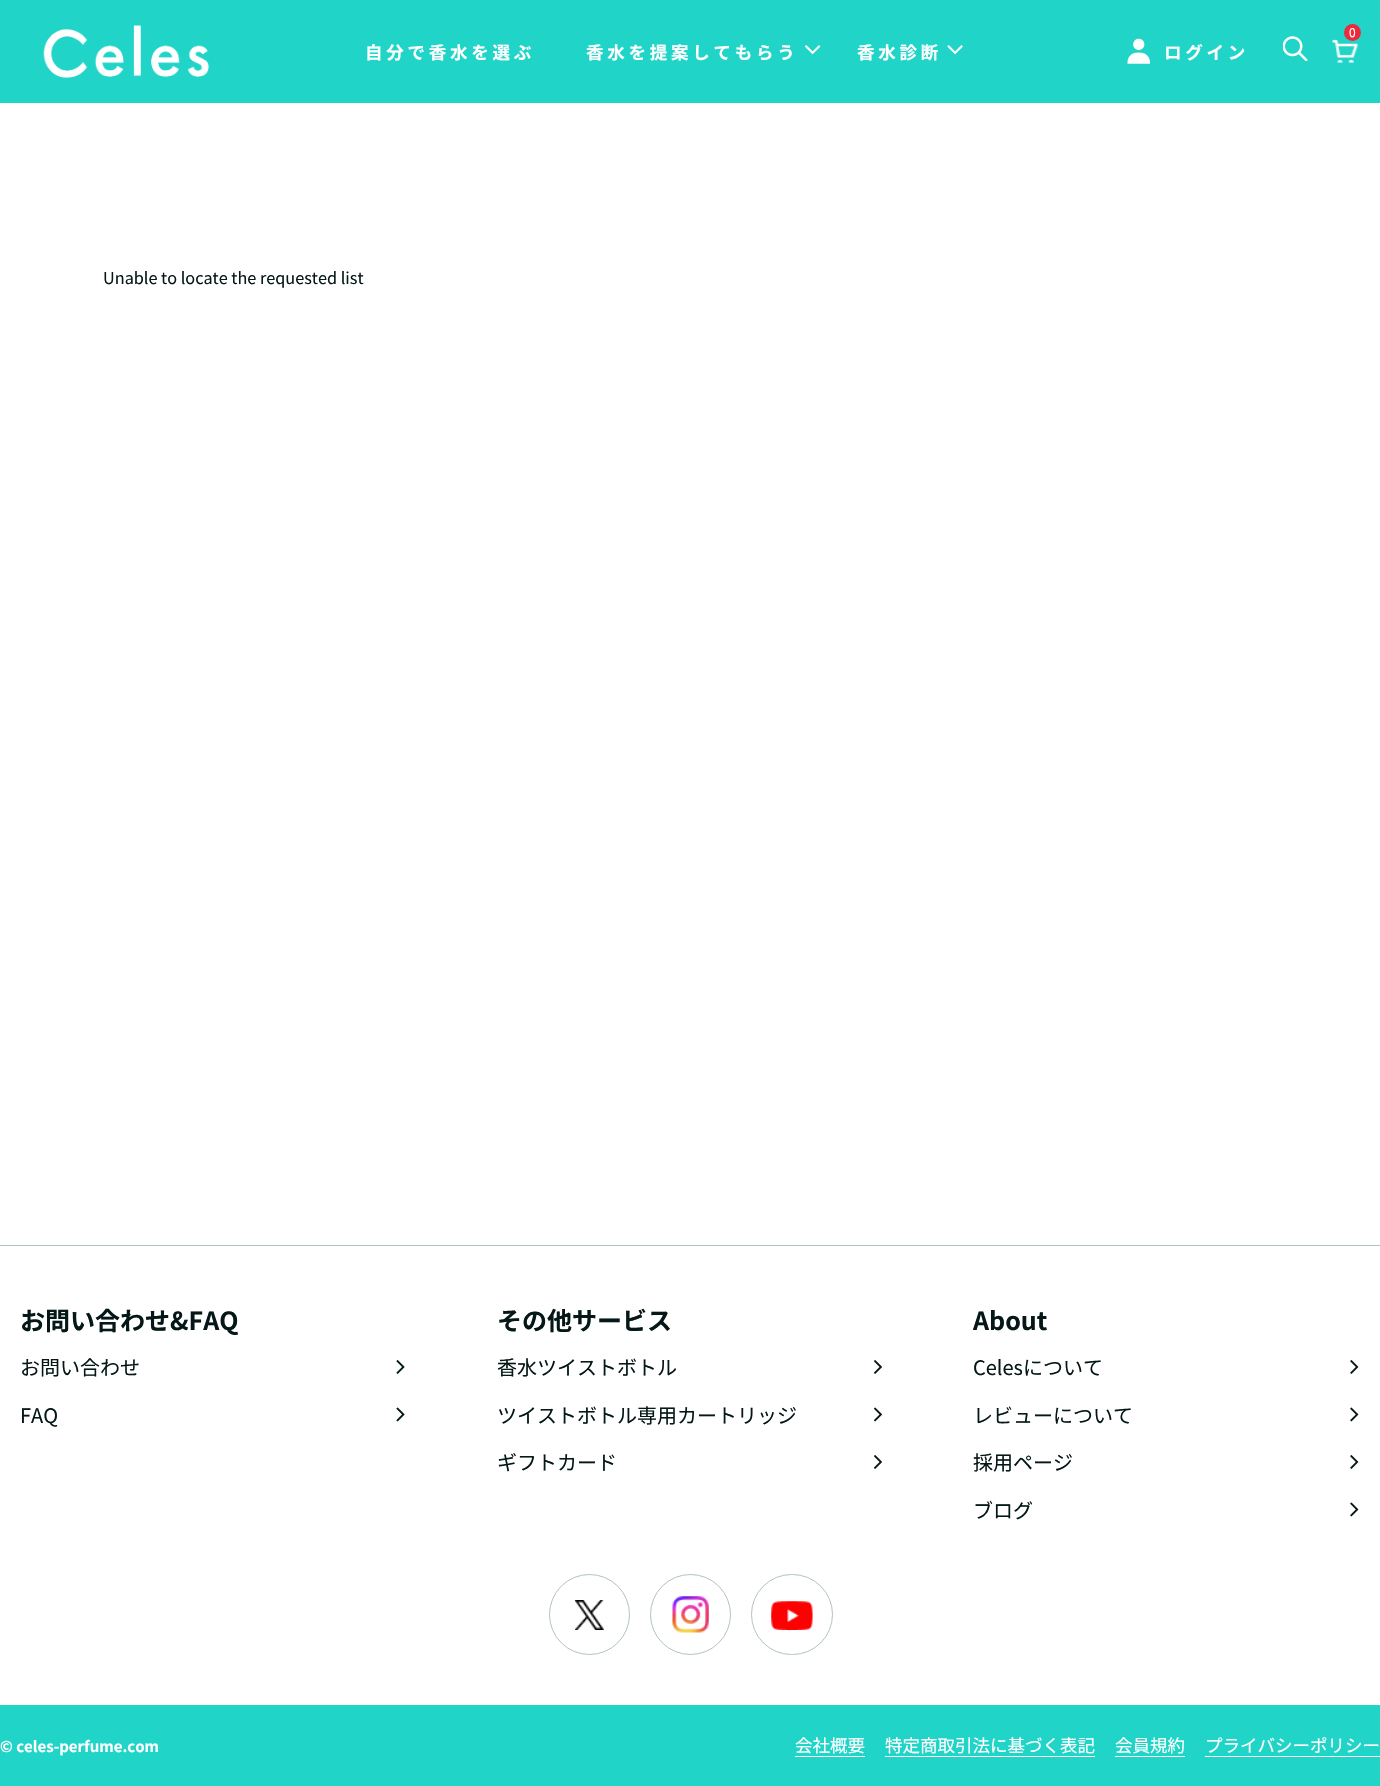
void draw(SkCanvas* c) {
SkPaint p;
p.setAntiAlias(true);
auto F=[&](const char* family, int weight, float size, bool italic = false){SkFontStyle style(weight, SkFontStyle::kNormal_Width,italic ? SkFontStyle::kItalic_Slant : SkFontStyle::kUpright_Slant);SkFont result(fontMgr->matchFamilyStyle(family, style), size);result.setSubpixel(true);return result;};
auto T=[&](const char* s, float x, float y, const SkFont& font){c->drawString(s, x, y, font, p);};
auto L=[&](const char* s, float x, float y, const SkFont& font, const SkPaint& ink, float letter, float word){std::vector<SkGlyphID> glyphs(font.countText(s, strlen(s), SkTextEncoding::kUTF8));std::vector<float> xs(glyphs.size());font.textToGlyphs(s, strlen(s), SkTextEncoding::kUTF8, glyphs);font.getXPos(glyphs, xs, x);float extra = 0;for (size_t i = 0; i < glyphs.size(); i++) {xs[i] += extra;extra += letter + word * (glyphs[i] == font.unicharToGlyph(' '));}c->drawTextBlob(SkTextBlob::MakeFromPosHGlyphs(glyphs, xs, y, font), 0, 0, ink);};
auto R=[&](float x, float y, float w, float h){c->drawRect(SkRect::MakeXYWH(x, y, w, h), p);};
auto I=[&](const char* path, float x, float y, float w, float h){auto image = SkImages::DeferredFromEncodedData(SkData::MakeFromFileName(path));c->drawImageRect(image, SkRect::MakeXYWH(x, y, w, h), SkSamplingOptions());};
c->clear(0xffffffff);
p.setColor(0xff21d4c8);
R(0,0,1380,103);
I("1.png",43,25,166,53);
auto f1 = F("Noto Sans JP",700,17.5);
p.setColor(0xffffffff);
L("自分で香水を選ぶ",365,59,f1,p,3.75,0);
L("香水を提案してもらう",586,59,f1,p,3.75,0);
I("2.png",805,45,16,10);
L("香水診断",857,59,f1,p,3.75,0);
I("3.png",947,45,16,10);
I("4.png",1332,39,26,24);
p.setColor(0xffed293e);
c->drawCircle(1352.5,32.5,8.5,p);
auto f2 = F("Noto Sans JP",400,12);
p.setColor(0xffffffff);
T("0",1349,37,f2);
I("5.png",1127,38,23,26);
L("ログイン",1164,59,f1,p,3.75,0);
I("6.png",1283,36,25,25);
auto f3 = F("Noto Sans JP",400,16.25);
p.setColor(0xff051817);
T("Unable to locate the requested list",103,284,f3);
p.setColor(0xffb2c2c1);
R(0,1245,1380,1);
auto f4 = F("Noto Sans JP",700,25);
p.setColor(0xff051817);
T("お問い合わせ&FAQ",20,1330,f4);
auto f5 = F("Noto Sans JP",400,20);
T("お問い合わせ",20,1375,f5);
I("7.png",396,1360,9,14);
T("FAQ",20,1423,f5);
I("8.png",396,1407,9,15);
T("その他サービス",497,1330,f4);
T("香水ツイストボトル",497,1375,f5);
I("9.png",874,1360,8,14);
T("ツイストボトル専用カートリッジ",497,1423,f5);
I("10.png",874,1407,8,15);
T("ギフトカード",497,1470,f5);
I("9.png",874,1455,8,14);
T("About",973,1330,f4);
T("Celesについて",973,1375,f5);
I("11.png",1350,1360,9,14);
T("レビューについて",973,1423,f5);
I("12.png",1350,1407,9,15);
T("採用ページ",973,1470,f5);
I("11.png",1350,1455,9,14);
T("ブログ",973,1518,f5);
I("12.png",1350,1502,9,15);
p.setStroke(true);
p.setStrokeWidth(1);
p.setColor(0xffb2c2c1);
c->drawCircle(589.5,1614.5,40,p);
I("13.png",575,1600,29,30);
c->drawCircle(690.5,1614.5,40,p);
I("14.png",672,1596,37,37);
c->drawRoundRect(SkRect::MakeXYWH(751.5,1574.5,81,80),40,40,p);
I("15.png",771,1601,42,29);
p.setStroke(false);
p.setColor(0xff21d4c8);
R(0,1705,1380,81);
auto f6 = F("Noto Sans JP",700,15);
p.setColor(0xffffffff);
T("© celes-perfume.com",0,1752,f6);
auto f7 = F("Noto Sans JP",400,17.5);
T("会社概要",795,1752,f7);
R(795,1756,70,1);
T("特定商取引法に基づく表記",885,1752,f7);
R(885,1756,210,1);
T("会員規約",1115,1752,f7);
R(1115,1756,70,1);
T("プライバシーポリシー",1205,1752,f7);
R(1205,1756,175,1);
}
